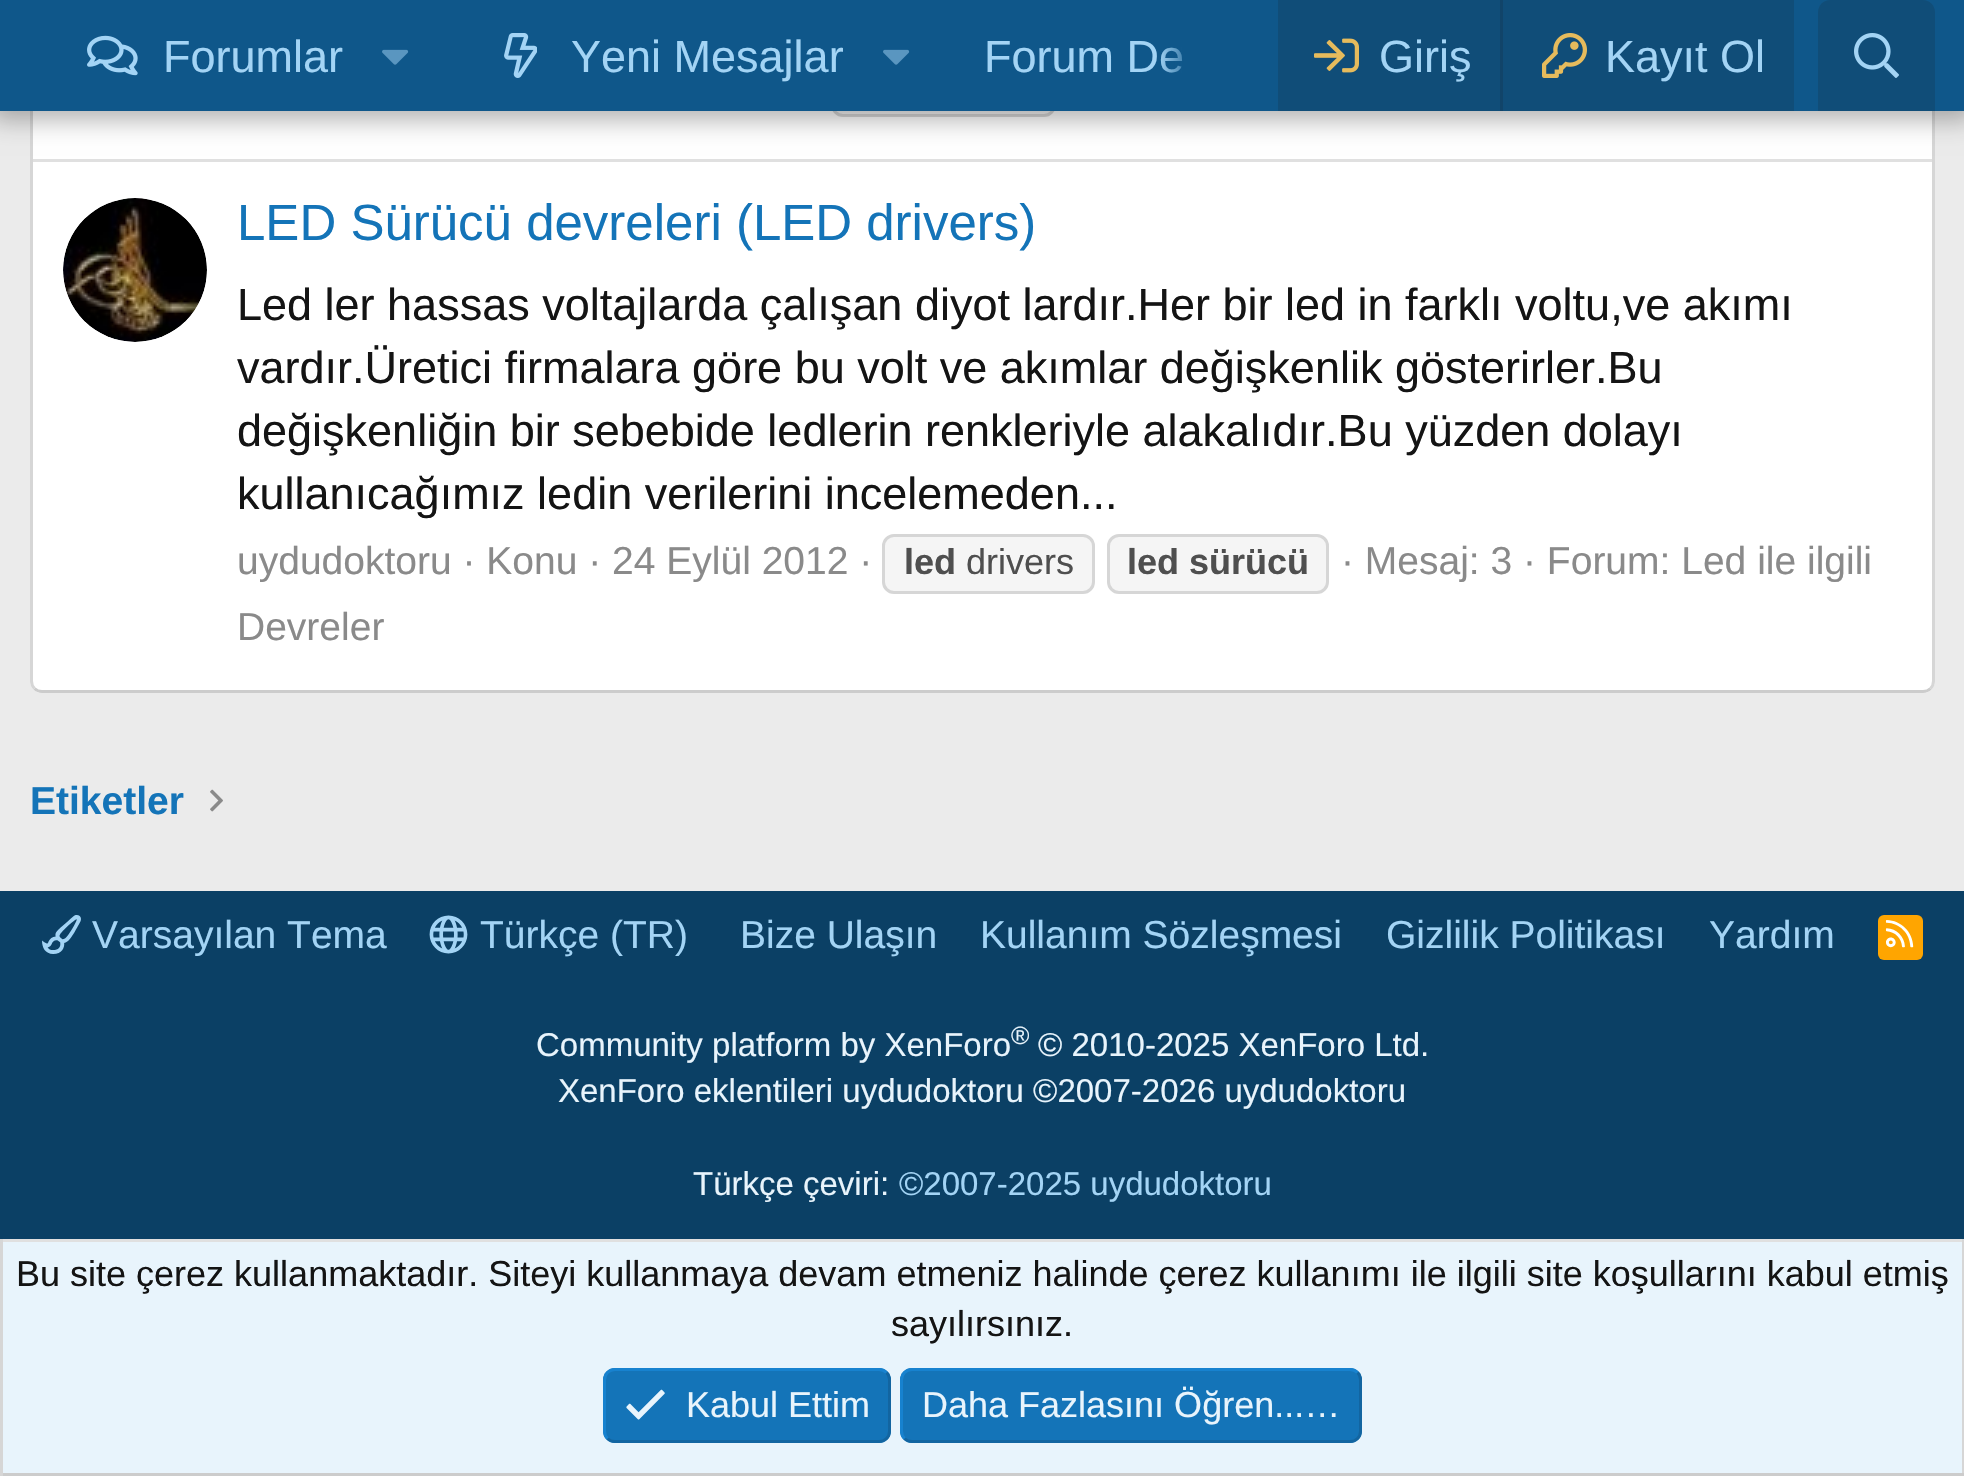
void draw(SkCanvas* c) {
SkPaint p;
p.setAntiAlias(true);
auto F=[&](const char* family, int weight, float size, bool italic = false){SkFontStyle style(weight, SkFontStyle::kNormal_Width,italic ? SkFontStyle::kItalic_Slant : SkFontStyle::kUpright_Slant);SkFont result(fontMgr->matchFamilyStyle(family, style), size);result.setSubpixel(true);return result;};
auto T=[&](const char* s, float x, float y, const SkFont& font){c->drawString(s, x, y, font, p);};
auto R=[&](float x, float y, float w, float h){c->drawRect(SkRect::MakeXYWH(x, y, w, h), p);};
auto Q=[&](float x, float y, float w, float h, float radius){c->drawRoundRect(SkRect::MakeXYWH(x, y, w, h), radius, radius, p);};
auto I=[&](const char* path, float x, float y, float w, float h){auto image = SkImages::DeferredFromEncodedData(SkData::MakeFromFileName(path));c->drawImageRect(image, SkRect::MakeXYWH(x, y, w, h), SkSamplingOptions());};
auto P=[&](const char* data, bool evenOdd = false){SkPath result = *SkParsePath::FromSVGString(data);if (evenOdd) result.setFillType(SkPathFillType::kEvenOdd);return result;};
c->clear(0xffebebeb);
p.setColor(0xffffffff);
Q(30,-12,1905,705,12);
p.setStroke(true);
p.setStrokeWidth(3);
p.setColor(0xffd6d6d6);
c->drawPath(P("M1930.5-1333.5c2 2 3 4.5 3 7.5v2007c0 3-1 5.5-3 7.5"),p);
p.setColor(0xffcccccc);
c->drawPath(P("M1930.5 688.5c-2 2-4.5 3-7.5 3h-1881c-3 0-5.5-1-7.5-3"),p);
p.setColor(0xffd6d6d6);
c->drawPath(P("M34.5 688.5c-2-2-3-4.5-3-7.5v-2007c0-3 1-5.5 3-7.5"),p);
p.setStroke(false);
p.setColor(0xfff5f5f5);
c->drawRoundRect(SkRect::MakeXYWH(832.5,58.5,222,57),10.5,10.5,p);
p.setStroke(true);
p.setColor(0xffd6d6d6);
c->drawRoundRect(SkRect::MakeXYWH(832.5,58.5,222,57),10.5,10.5,p);
p.setStroke(false);
p.setColor(0x4d000000);
p.setMaskFilter(SkMaskFilter::MakeBlur(kNormal_SkBlurStyle, 12));
c->drawRect(SkRect::MakeXYWH(-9,-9,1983,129),p);
p.setMaskFilter(nullptr);
p.setColor(0xff0f578a);
R(0,0,1964,111);
I("1.png",87,35,51,41);
auto f1 = F("Liberation Sans",400,45);
p.setColor(0xffa3d4f5);
T("Forumlar",163,72,f1);
I("2.png",382,49,27,16);
I("3.png",504,33,33,45);
T("Yeni Mesajlar",571,72,f1);
I("2.png",883,49,27,16);
T("Forum De",984,72,f1);
{
const SkColor colors[] = {0x000f578a,0xff0f578a};
const float stops[] = {0,.33};
const SkPoint ends[] = {{1158,56}, {1278,56}};
p.setShader(SkGradientShader::MakeLinear(ends, colors, stops, 2, SkTileMode::kClamp));
p.setAlpha(255);
}
R(1161,47,21,26);
p.setShader(nullptr);
p.setColor(0xff104d78);
R(1278,0,516,111);
I("4.png",1314,38,45,35);
p.setColor(0xffa3d4f5);
T("Giriş",1379,72,f1);
p.setColor(0xff114469);
R(1500,0,3,111);
I("5.png",1542,33,45,45);
p.setColor(0xffa3d4f5);
T("Kayıt Ol",1605,72,f1);
p.setColor(0xff104d78);
c->drawPath(P("M1830 0h93c6.5 0 12 5.5 12 12v99h-117v-99c0-6.5 5.5-12 12-12z"),p);
I("6.png",1854,33,45,45);
p.setColor(0xffe0e0e0);
R(33,159,1899,3);
I("7.png",63,198,144,144);
auto f2 = F("Liberation Sans",400,51);
p.setColor(0xff1474b8);
T("LED Sürücü devreleri (LED drivers)",237,240,f2);
p.setColor(0xff141414);
T("Led ler hassas voltajlarda çalışan diyot lardır.Her bir led in farklı voltu,ve akımı",237,320,f1);
T("vardır.Üretici firmalara göre bu volt ve akımlar değişkenlik gösterirler.Bu",237,383,f1);
T("değişkenliğin bir sebebide ledlerin renkleriyle alakalıdır.Bu yüzden dolayı",237,446,f1);
T("kullanıcağımız ledin verilerini incelemeden...",237,509,f1);
auto f3 = F("Liberation Sans",400,39);
p.setColor(0xff8a8a8a);
T("uydudoktoru · Konu · 24 Eylül 2012 ·",237,574,f3);
p.setColor(0xfff5f5f5);
c->drawRoundRect(SkRect::MakeXYWH(883.5,535.5,210,57),10.5,10.5,p);
p.setStroke(true);
p.setColor(0xffd6d6d6);
c->drawRoundRect(SkRect::MakeXYWH(883.5,535.5,210,57),10.5,10.5,p);
auto f4 = F("Liberation Sans",700,36);
p.setStroke(false);
p.setColor(0xff4f4f4f);
T("led",904,574,f4);
auto f5 = F("Liberation Sans",400,36);
T("drivers",966,574,f5);
p.setColor(0xfff5f5f5);
c->drawRoundRect(SkRect::MakeXYWH(1108.5,535.5,219,57),10.5,10.5,p);
p.setStroke(true);
p.setColor(0xffd6d6d6);
c->drawRoundRect(SkRect::MakeXYWH(1108.5,535.5,219,57),10.5,10.5,p);
p.setStroke(false);
p.setColor(0xff4f4f4f);
T("led sürücü",1127,574,f4);
p.setColor(0xff8a8a8a);
T("· Mesaj: 3 · Forum: Led ile ilgili",1341,574,f3);
T("Devreler",237,640,f3);
auto f6 = F("Liberation Sans",700,39);
p.setColor(0xff1474b8);
T("Etiketler",30,814,f6);
I("8.png",210,789,13,23);
p.setColor(0xff0b4065);
R(0,891,1964,348);
I("9.png",42,915,39,39);
p.setColor(0xffa3d4f5);
T("Varsayılan Tema",92,948,f3);
I("10.png",429,915,39,39);
T("Türkçe (TR)",480,948,f3);
T("Bize Ulaşın",740,948,f3);
T("Kullanım Sözleşmesi",980,948,f3);
T("Gizlilik Politikası",1386,948,f3);
T("Yardım",1709,948,f3);
p.setColor(0xffffa500);
Q(1878,915,45,45,6);
I("11.png",1885,920,29,28);
auto f7 = F("Liberation Sans",400,33);
p.setColor(0xffe8f4fc);
T("Community platform by XenForo",536,1056,f7);
auto f8 = F("Liberation Sans",400,25);
T("®",1011,1044,f8);
T("© 2010-2025 XenForo Ltd.",1038,1056,f7);
T("XenForo eklentileri uydudoktoru ©2007-2026 uydudoktoru",558,1102,f7);
T("Türkçe çeviri:",693,1195,f7);
p.setColor(0xffa3d4f5);
T("©2007-2025 uydudoktoru",899,1195,f7);
p.setColor(0xffe8f4fc);
R(3,1242,1959,231);
p.setColor(0xffe0e0e0);
R(0,1239,1964,3);
p.setColor(0xffd6d6d6);
R(1962,1239,2,237);
p.setColor(0xffcccccc);
R(0,1473,1964,3);
p.setColor(0xffd6d6d6);
R(0,1239,3,237);
p.setColor(0xff141414);
T("Bu site çerez kullanmaktadır. Siteyi kullanmaya devam etmeniz halinde çerez kullanımı ile ilgili site koşullarını kabul etmiş",16,1286,f5);
T("sayılırsınız.",891,1336,f5);
p.setColor(0xff1474b8);
Q(603,1368,288,75,12);
p.setStroke(true);
p.setColor(0xff1265a1);
c->drawPath(P("M886.5 1372.5c2 2 3 4.5 3 7.5v51c0 3-1 5.5-3 7.5c-2 2-4.5 3-7.5 3h-264c-3 0-5.5-1-7.5-3"),p);
p.setColor(0xff1782cf);
c->drawPath(P("M607.5 1438.5c-2-2-3-4.5-3-7.5v-51c0-3 1-5.5 3-7.5c2-2 4.5-3 7.5-3h264c3 0 5.5 1 7.5 3"),p);
I("12.png",626,1389,39,31);
p.setStroke(false);
p.setColor(0xffe8f4fc);
T("Kabul Ettim",686,1417,f5);
p.setColor(0xff1474b8);
Q(900,1368,462,75,12);
p.setStroke(true);
p.setColor(0xff1265a1);
c->drawPath(P("M1357.5 1372.5c2 2 3 4.5 3 7.5v51c0 3-1 5.5-3 7.5c-2 2-4.5 3-7.5 3h-438c-3 0-5.5-1-7.5-3"),p);
p.setColor(0xff1782cf);
c->drawPath(P("M904.5 1438.5c-2-2-3-4.5-3-7.5v-51c0-3 1-5.5 3-7.5c2-2 4.5-3 7.5-3h438c3 0 5.5 1 7.5 3"),p);
p.setStroke(false);
p.setColor(0xffe8f4fc);
T("Daha Fazlasını Öğren...…",922,1417,f5);
}
